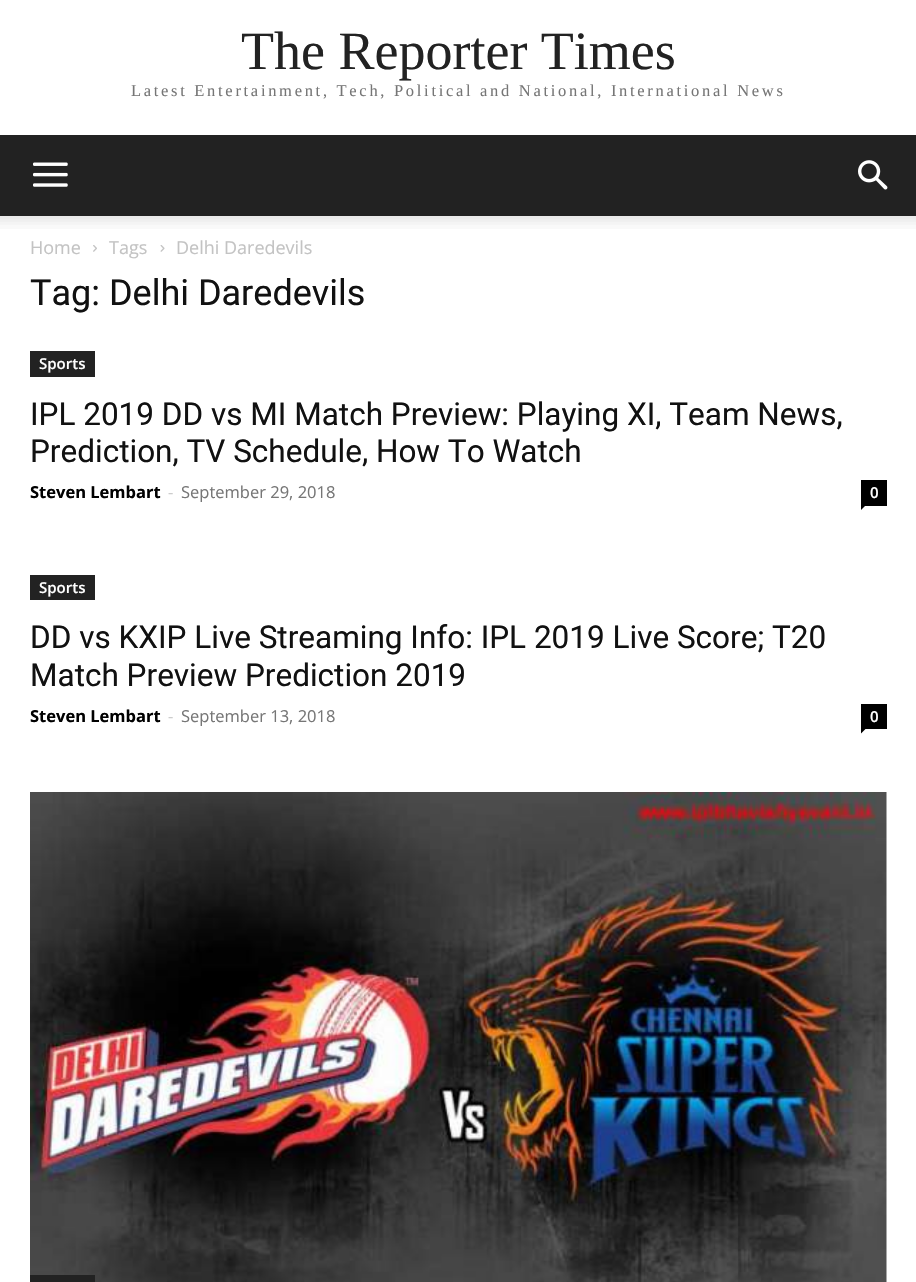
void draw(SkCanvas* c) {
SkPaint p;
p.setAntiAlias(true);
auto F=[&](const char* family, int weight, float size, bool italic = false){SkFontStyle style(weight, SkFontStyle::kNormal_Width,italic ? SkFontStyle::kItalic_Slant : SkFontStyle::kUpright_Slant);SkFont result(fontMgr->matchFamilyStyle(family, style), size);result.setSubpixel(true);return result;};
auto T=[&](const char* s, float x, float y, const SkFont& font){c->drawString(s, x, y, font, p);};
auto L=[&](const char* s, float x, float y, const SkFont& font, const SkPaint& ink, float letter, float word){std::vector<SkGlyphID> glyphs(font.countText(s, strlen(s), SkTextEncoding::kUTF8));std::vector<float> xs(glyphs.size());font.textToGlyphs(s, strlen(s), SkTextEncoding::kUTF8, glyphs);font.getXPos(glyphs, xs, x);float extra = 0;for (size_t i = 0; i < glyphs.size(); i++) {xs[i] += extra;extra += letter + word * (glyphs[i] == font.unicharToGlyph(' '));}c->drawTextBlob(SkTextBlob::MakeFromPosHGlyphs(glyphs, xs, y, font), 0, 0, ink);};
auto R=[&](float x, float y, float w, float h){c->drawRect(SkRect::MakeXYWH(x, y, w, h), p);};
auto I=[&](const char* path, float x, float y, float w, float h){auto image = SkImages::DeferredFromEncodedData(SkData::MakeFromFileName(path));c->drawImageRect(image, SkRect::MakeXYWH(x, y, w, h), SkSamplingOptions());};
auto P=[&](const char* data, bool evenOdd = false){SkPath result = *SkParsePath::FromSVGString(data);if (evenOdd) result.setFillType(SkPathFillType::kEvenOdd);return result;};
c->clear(0xffffffff);
auto f1 = F("Liberation Serif",400,54);
p.setColor(0xff222222);
T("The Reporter Times",241,69,f1);
auto f2 = F("Liberation Serif",400,16.5);
p.setColor(0xff767676);
L("Latest Entertainment, Tech, Political and National, International News",131,96,f2,p,2.7,0);
p.setColor(0xff222222);
R(0,135,916,81);
I("1.png",33,162,35,25);
I("2.png",858,160,30,30);
I("3.png",0,216,916,13);
auto f3 = F("Open Sans",400,18);
p.setColor(0xffc3c3c3);
T("Home",30,254,f3);
I("4.png",93,245,4,7);
T("Tags",109,254,f3);
I("5.png",160,245,5,7);
T("Delhi Daredevils",176,254,f3);
auto f4 = F("Roboto",400,36);
p.setColor(0xff111111);
T("Tag: Delhi Daredevils",30,305,f4);
p.setColor(0xff222222);
R(30,351,65,26);
auto f5 = F("Open Sans",600,15);
p.setColor(0xffffffff);
T("Sports",39,369,f5);
auto f6 = F("Roboto",400,31.5);
p.setColor(0xff111111);
T("IPL 2019 DD vs MI Match Preview: Playing XI, Team News,",30,425,f6);
T("Prediction, TV Schedule, How To Watch",30,462,f6);
auto f7 = F("Open Sans",700,16.5);
p.setColor(0xff000000);
T("Steven Lembart",30,498,f7);
auto f8 = F("Open Sans",400,16.5);
p.setColor(0xffcccccc);
T("-",168,498,f8);
p.setColor(0xff767676);
T("September 29, 2018",181,498,f8);
p.setColor(0xff000000);
R(861,480,26,26);
p.setColor(0xffffffff);
T("0",870,498,f5);
p.setColor(0xff000000);
c->drawPath(P("M861 505.5h4.5l-4.5 4.5z"),p);
p.setColor(0xff222222);
R(30,575,65,25);
p.setColor(0xffffffff);
T("Sports",39,593,f5);
p.setColor(0xff111111);
T("DD vs KXIP Live Streaming Info: IPL 2019 Live Score; T20",30,648,f6);
T("Match Preview Prediction 2019",30,686,f6);
p.setColor(0xff000000);
T("Steven Lembart",30,722,f7);
p.setColor(0xffcccccc);
T("-",168,722,f8);
p.setColor(0xff767676);
T("September 13, 2018",181,722,f8);
p.setColor(0xff000000);
R(861,704,26,25);
p.setColor(0xffffffff);
T("0",870,722,f5);
p.setColor(0xff000000);
c->drawPath(P("M861 729h4.5l-4.5 4.5z"),p);
I("6.png",30,792,857,490);
p.setColor(0xff222222);
R(30,1275,65,7);
}
